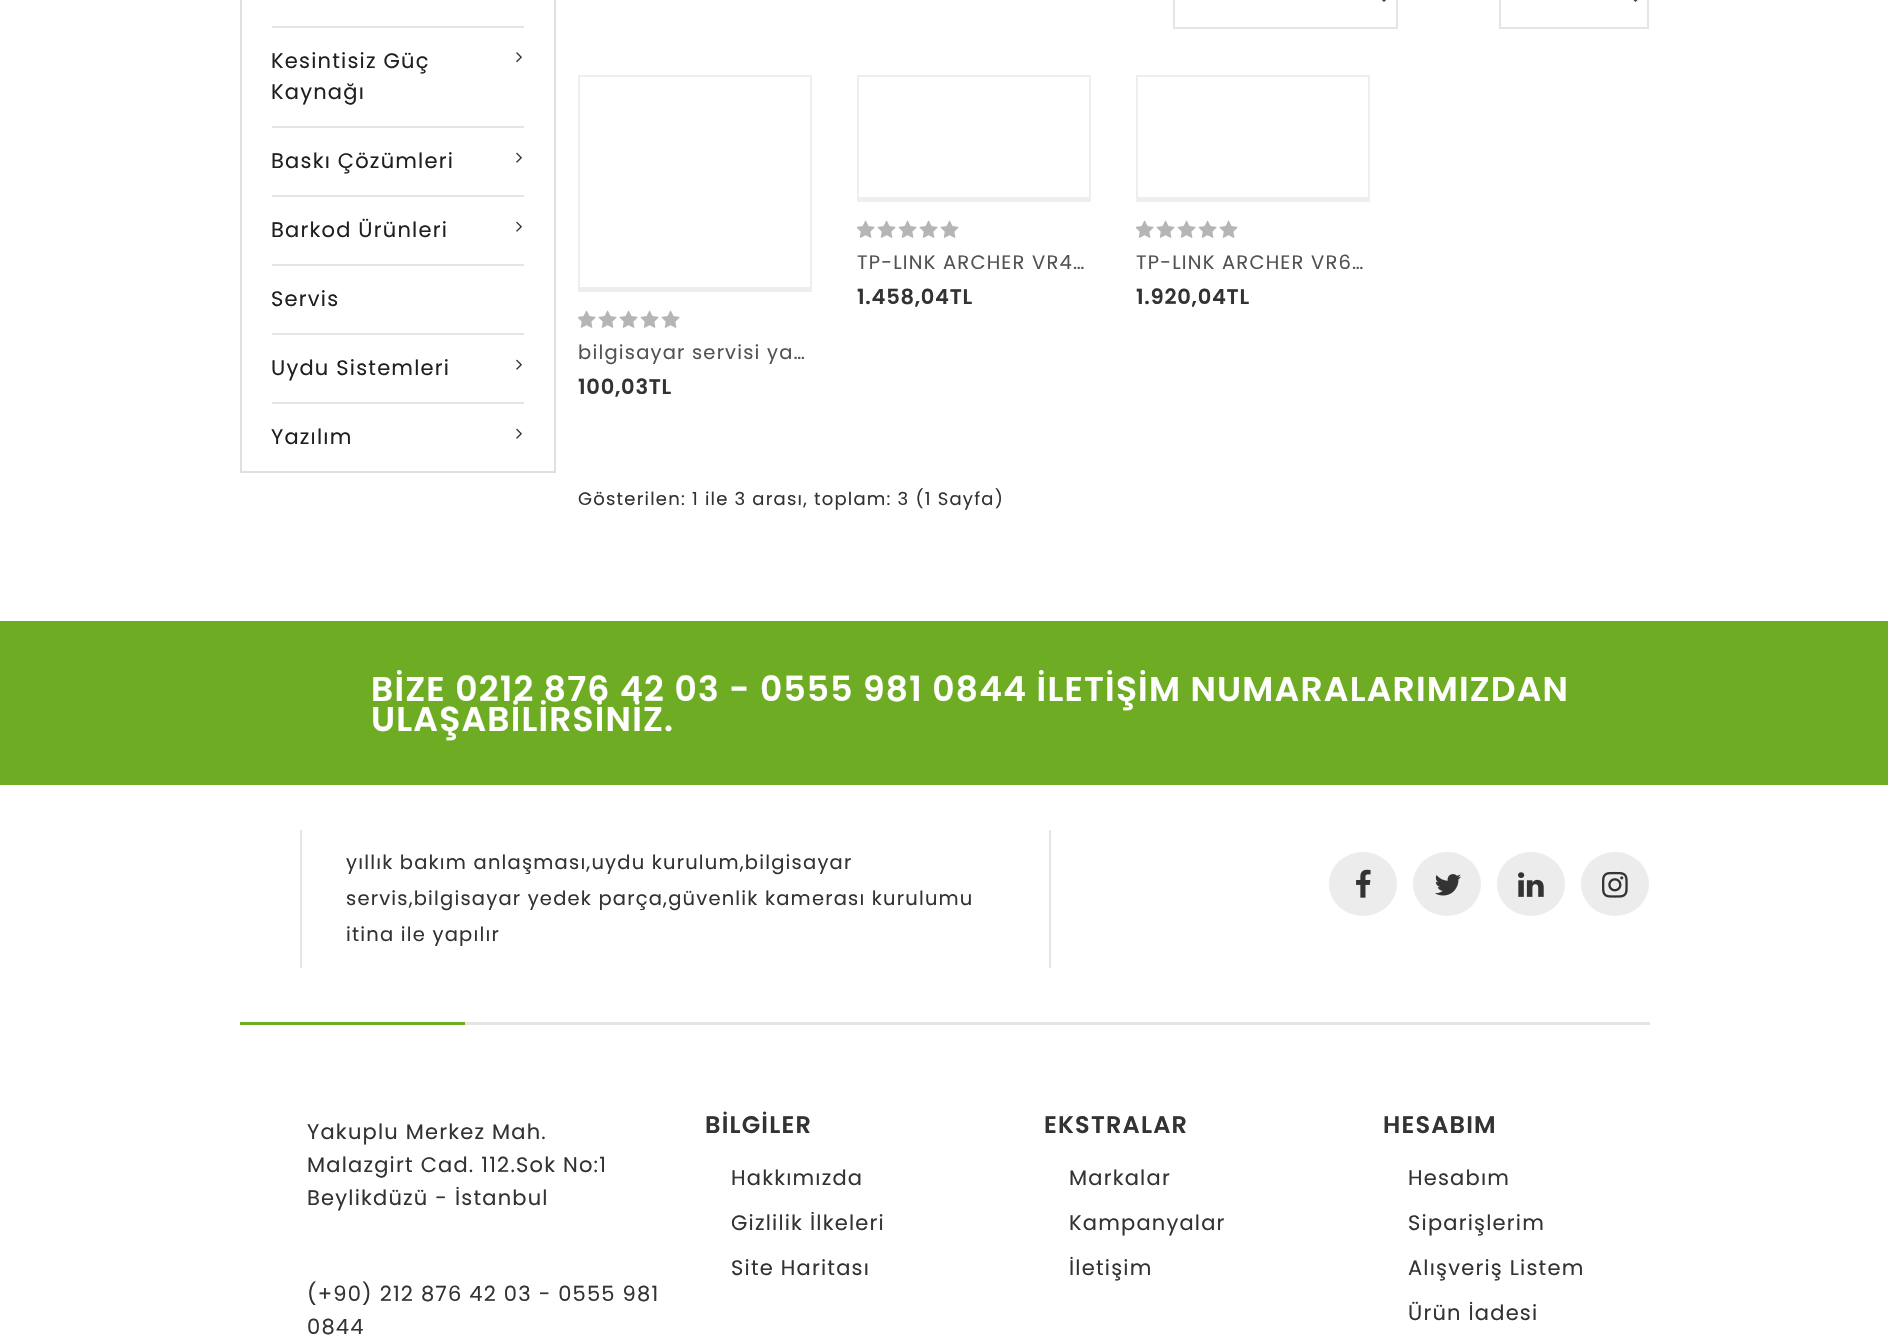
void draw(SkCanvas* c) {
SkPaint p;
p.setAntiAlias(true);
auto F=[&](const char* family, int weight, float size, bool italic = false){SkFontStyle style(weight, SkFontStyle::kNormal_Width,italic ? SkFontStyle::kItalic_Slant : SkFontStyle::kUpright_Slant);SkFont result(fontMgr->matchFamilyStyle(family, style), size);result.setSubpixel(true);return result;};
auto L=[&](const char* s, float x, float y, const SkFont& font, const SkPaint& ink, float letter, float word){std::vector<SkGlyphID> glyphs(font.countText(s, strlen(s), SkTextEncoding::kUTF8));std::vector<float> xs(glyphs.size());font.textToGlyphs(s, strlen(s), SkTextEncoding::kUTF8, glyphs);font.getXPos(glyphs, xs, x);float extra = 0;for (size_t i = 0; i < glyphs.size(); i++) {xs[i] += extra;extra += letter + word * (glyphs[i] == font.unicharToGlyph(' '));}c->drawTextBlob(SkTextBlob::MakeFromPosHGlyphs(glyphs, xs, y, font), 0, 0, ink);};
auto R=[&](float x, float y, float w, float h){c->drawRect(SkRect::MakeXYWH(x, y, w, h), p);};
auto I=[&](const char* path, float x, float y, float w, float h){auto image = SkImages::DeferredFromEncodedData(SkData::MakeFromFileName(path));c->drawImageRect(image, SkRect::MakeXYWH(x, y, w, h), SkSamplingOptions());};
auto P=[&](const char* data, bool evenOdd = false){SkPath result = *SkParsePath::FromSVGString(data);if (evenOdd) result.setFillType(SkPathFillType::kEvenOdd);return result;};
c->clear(0xffffffff);
p.setColor(0xffe0e0e0);
R(554,0,2,473);
R(240,471,315,2);
R(240,0,2,473);
p.setColor(0xffe5e5e5);
R(272,26,252,2);
R(272,126,252,2);
auto f1 = F("Poppins",400,21);
p.setColor(0xff1f2022);
L("Kesintisiz Güç",271,68,f1,p,1.2,0);
L("Kaynağı",271,99,f1,p,1.2,0);
I("1.png",516,52,6,11);
p.setColor(0xffe5e5e5);
R(272,195,252,2);
p.setColor(0xff1f2022);
L("Baskı Çözümleri",271,168,f1,p,1.2,0);
I("2.png",516,152,6,11);
p.setColor(0xffe5e5e5);
R(272,264,252,2);
p.setColor(0xff1f2022);
L("Barkod Ürünleri",271,237,f1,p,1.2,0);
I("2.png",516,221,6,11);
p.setColor(0xffe5e5e5);
R(272,333,252,2);
p.setColor(0xff1f2022);
L("Servis",271,306,f1,p,1.2,0);
p.setColor(0xffe5e5e5);
R(272,402,252,2);
p.setColor(0xff1f2022);
L("Uydu Sistemleri",271,375,f1,p,1.2,0);
I("2.png",516,359,6,11);
L("Yazılım",271,444,f1,p,1.2,0);
I("2.png",516,428,6,11);
p.setStroke(true);
p.setStrokeWidth(2);
p.setColor(0xffe5e5e5);
c->drawRect(SkRect::MakeXYWH(1174,-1,223,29),p);
p.setStrokeWidth(3);
p.setColor(0xff414141);
c->drawPath(P("M1378-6l6 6l6-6"),p);
p.setStrokeWidth(2);
p.setColor(0xffe5e5e5);
c->drawRect(SkRect::MakeXYWH(1500,-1,148,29),p);
p.setStrokeWidth(3);
p.setColor(0xff414141);
c->drawPath(P("M1629.5-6l6 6l6-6"),p);
p.setStroke(false);
p.setColor(0xffeeeeee);
R(857,75,234,2);
R(1089,75,2,126);
R(857,197,234,5);
R(857,75,2,126);
I("3.png",857,220,18,18);
I("4.png",877,220,19,18);
I("4.png",898,220,19,18);
I("4.png",919,220,19,18);
I("4.png",940,220,19,18);
auto f2 = F("Poppins",400,19.5);
p.setColor(0xff535353);
L("TP-LINK ARCHER VR4…",857,269,f2,p,1.2,0);
auto f3 = F("Poppins",600,21);
p.setColor(0xff333333);
L("1.458,04TL",857,304,f3,p,.75,0);
p.setColor(0xffeeeeee);
R(1136,75,234,2);
R(1368,75,2,126);
R(1136,197,234,5);
R(1136,75,2,126);
I("3.png",1136,220,18,18);
I("4.png",1156,220,19,18);
I("4.png",1177,220,19,18);
I("4.png",1198,220,19,18);
I("4.png",1219,220,19,18);
p.setColor(0xff535353);
L("TP-LINK ARCHER VR6…",1136,269,f2,p,1.2,0);
p.setColor(0xff333333);
L("1.920,04TL",1136,304,f3,p,.75,0);
p.setColor(0xffeeeeee);
R(578,75,234,2);
R(810,75,2,216);
R(578,287,234,5);
R(578,75,2,216);
I("3.png",578,310,18,18);
I("4.png",598,310,19,18);
I("4.png",619,310,19,18);
I("4.png",640,310,19,18);
I("4.png",661,310,19,18);
p.setColor(0xff535353);
L("bilgisayar servisi ya…",578,359,f2,p,1.2,0);
p.setColor(0xff333333);
L("100,03TL",578,394,f3,p,.75,0);
auto f4 = F("Poppins",400,18);
L("Gösterilen: 1 ile 3 arası, toplam: 3 (1 Sayfa)",578,505,f4,p,1.2,0);
p.setColor(0xff6dac23);
R(0,621,1888,164);
auto f5 = F("Poppins",600,34.5);
p.setColor(0xffffffff);
L("BİZE 0212 876 42 03 - 0555 981 0844 İLETİŞİM NUMARALARIMIZDAN",371,701,f5,p,1.2,0);
L("ULAŞABİLİRSİNİZ.",371,731,f5,p,1.2,0);
p.setColor(0xffe5e5e5);
R(1049,830,2,138);
R(300,830,2,138);
p.setColor(0xff333333);
L("yıllık bakım anlaşması,uydu kurulum,bilgisayar",346,869,f2,p,1.2,0);
L("servis,bilgisayar yedek parça,güvenlik kamerası kurulumu",346,905,f2,p,1.2,0);
L("itina ile yapılır",346,941,f2,p,1.2,0);
p.setColor(0xffececec);
c->drawOval(SkRect::MakeXYWH(1329,852,68,64),p);
I("5.png",1356,869,15,29);
c->drawOval(SkRect::MakeXYWH(1413,852,68,64),p);
I("6.png",1435,874,26,22);
c->drawOval(SkRect::MakeXYWH(1497,852,68,64),p);
I("7.png",1518,872,26,25);
c->drawOval(SkRect::MakeXYWH(1581,852,68,64),p);
I("8.png",1602,871,26,27);
p.setColor(0xffe5e5e5);
R(465,1022,1185,3);
p.setColor(0xff6dac23);
R(240,1022,225,3);
p.setColor(0xff333333);
L("Yakuplu Merkez Mah.",307,1139,f1,p,1.2,0);
L("Malazgirt Cad. 112.Sok No:1",307,1172,f1,p,1.2,0);
L("Beylikdüzü - İstanbul",307,1205,f1,p,1.2,0);
L("(+90) 212 876 42 03 - 0555 981",307,1301,f1,p,1.2,0);
L("0844",307,1334,f1,p,1.2,0);
auto f6 = F("Poppins",600,24);
L("BİLGİLER",705,1133,f6,p,1.2,0);
L("Hakkımızda",731,1185,f1,p,1.2,0);
L("Gizlilik İlkeleri",731,1230,f1,p,1.2,0);
L("Site Haritası",731,1275,f1,p,1.2,0);
L("EKSTRALAR",1044,1133,f6,p,1.2,0);
L("Markalar",1069,1185,f1,p,1.2,0);
L("Kampanyalar",1069,1230,f1,p,1.2,0);
L("İletişim",1069,1275,f1,p,1.2,0);
L("HESABIM",1383,1133,f6,p,1.2,0);
L("Hesabım",1408,1185,f1,p,1.2,0);
L("Siparişlerim",1408,1230,f1,p,1.2,0);
L("Alışveriş Listem",1408,1275,f1,p,1.2,0);
L("Ürün İadesi",1408,1320,f1,p,1.2,0);
}
